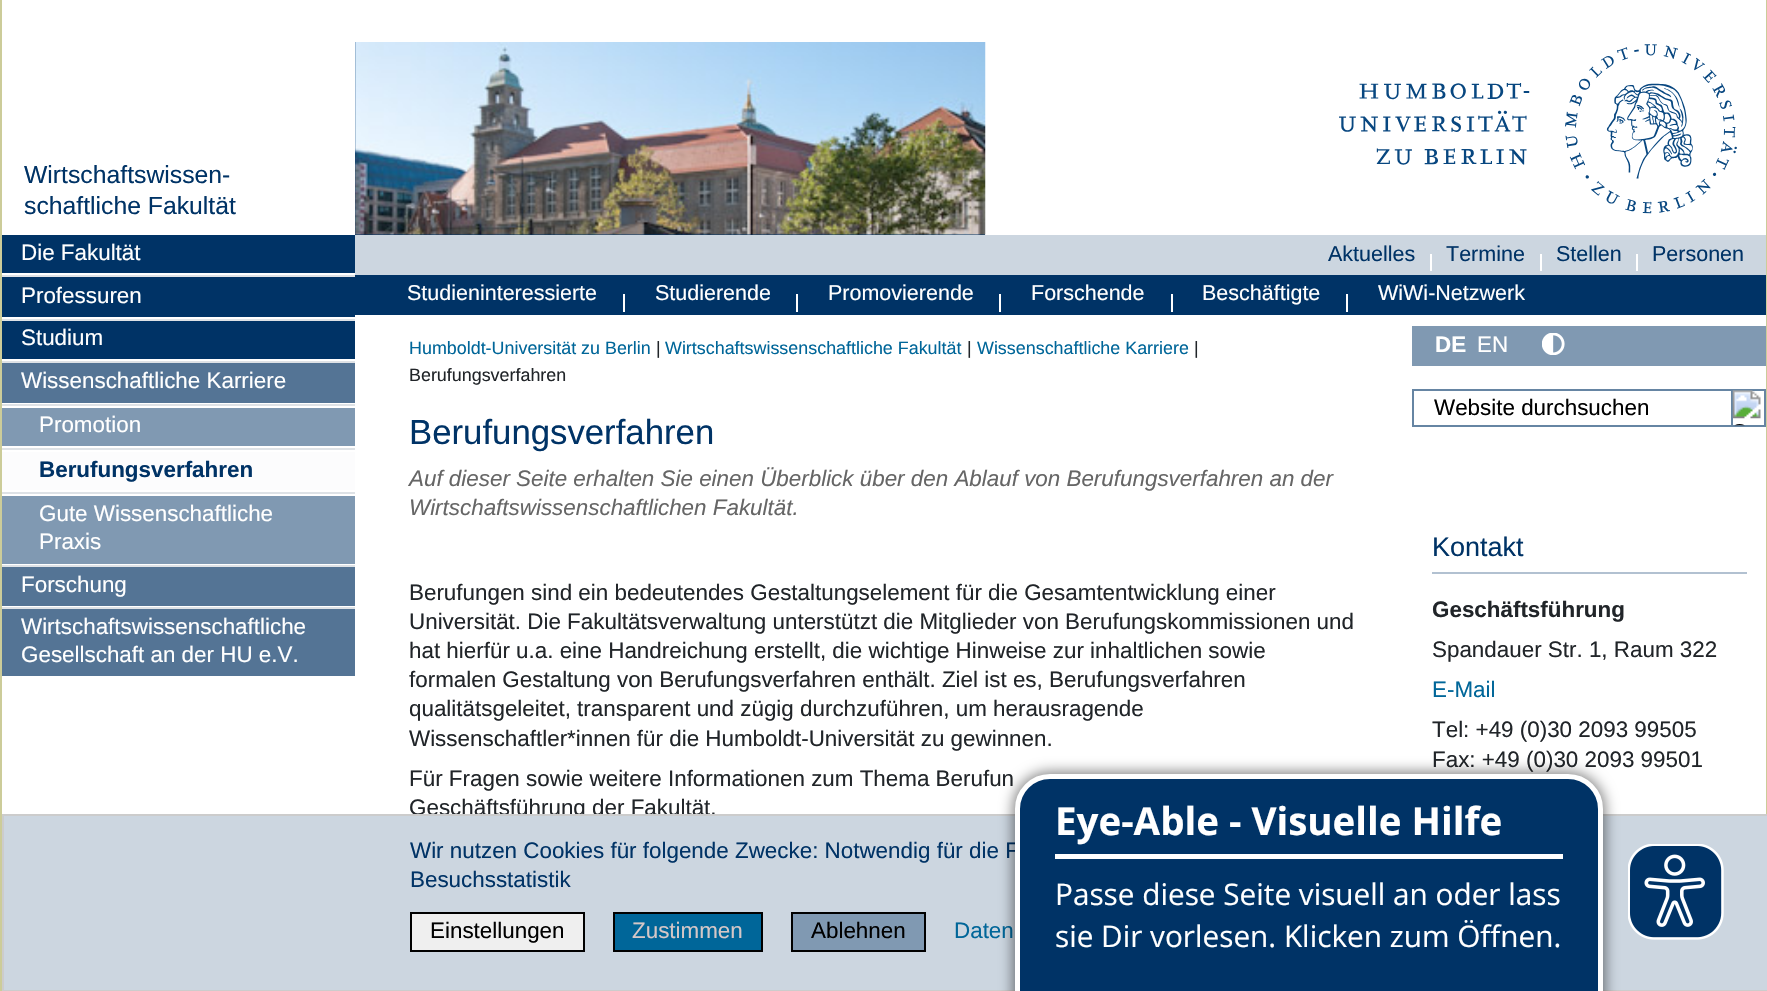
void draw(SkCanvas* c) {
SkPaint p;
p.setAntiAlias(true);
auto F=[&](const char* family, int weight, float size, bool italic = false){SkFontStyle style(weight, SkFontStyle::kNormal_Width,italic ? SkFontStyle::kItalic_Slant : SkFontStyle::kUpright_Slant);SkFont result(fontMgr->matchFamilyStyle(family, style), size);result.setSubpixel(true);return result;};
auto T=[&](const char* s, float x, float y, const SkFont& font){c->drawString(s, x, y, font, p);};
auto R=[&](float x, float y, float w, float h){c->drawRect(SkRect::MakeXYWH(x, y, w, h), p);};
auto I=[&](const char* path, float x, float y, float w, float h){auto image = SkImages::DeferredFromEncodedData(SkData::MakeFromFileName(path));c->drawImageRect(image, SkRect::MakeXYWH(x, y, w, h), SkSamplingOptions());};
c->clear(0xffffffff);
p.setColor(0xff003366);
R(355,42,630,193);
I("1.png",355,42,631,193);
I("2.png",1339,44,398,170);
p.setColor(0xffcccc99);
R(1766,0,1,814);
R(0,0,2,991);
auto f1 = F("Liberation Sans",400,24.75);
p.setColor(0xff003366);
T("Wirtschaftswissen-",24,183,f1);
T("schaftliche Fakultät",24,214,f1);
R(2,235,353,38);
auto f2 = F("Liberation Sans",400,22.4);
p.setColor(0xffffffff);
T("Die Fakultät",21,260,f2);
p.setColor(0xff003366);
R(2,277,353,40);
p.setColor(0xffdee2e6);
R(2,275,353,2);
p.setColor(0xffffffff);
T("Professuren",21,303,f2);
p.setColor(0xff003366);
R(2,321,353,38);
p.setColor(0xffdee2e6);
R(2,319,353,2);
p.setColor(0xffffffff);
T("Studium",21,345,f2);
p.setColor(0xff547495);
R(2,363,353,40);
p.setColor(0xffdee2e6);
R(2,361,353,2);
p.setColor(0xffffffff);
T("Wissenschaftliche Karriere",21,388,f2);
p.setColor(0xff8099b2);
R(2,408,353,38);
p.setColor(0xffdee2e6);
R(2,404,353,2);
p.setColor(0xffffffff);
T("Promotion",39,432,f2);
p.setColor(0xffdee2e6);
R(2,448,353,2);
p.setColor(0xfffcfcfd);
R(2,452,353,38);
auto f3 = F("Liberation Sans",700,22.4);
p.setColor(0xff003366);
T("Berufungsverfahren",39,477,f3);
p.setColor(0xff8099b2);
R(2,496,353,68);
p.setColor(0xffdee2e6);
R(2,492,353,2);
p.setColor(0xffffffff);
T("Gute Wissenschaftliche",39,521,f2);
T("Praxis",39,549,f2);
p.setColor(0xff547495);
R(2,567,353,39);
p.setColor(0xffdee2e6);
R(2,565,353,2);
p.setColor(0xffffffff);
T("Forschung",21,592,f2);
p.setColor(0xff547495);
R(2,609,353,67);
p.setColor(0xffdee2e6);
R(2,607,353,2);
p.setColor(0xffffffff);
T("Wirtschaftswissenschaftliche",21,634,f2);
T("Gesellschaft an der HU e.V.",21,662,f2);
p.setColor(0xffccd6e0);
R(355,235,1411,40);
auto f4 = F("Liberation Sans",400,21.5);
p.setColor(0xff003366);
T("Aktuelles",1328,261,f4);
p.setColor(0xffffffff);
R(1430,254,2,17);
p.setColor(0xff003366);
T("Termine",1446,261,f4);
p.setColor(0xffffffff);
R(1540,254,2,17);
p.setColor(0xff003366);
T("Stellen",1556,261,f4);
p.setColor(0xffffffff);
R(1636,254,2,17);
p.setColor(0xff003366);
T("Personen",1652,261,f4);
R(355,275,1411,40);
p.setColor(0xffffffff);
T("Studieninteressierte",407,300,f4);
R(623,294,2,18);
T("Studierende",655,300,f4);
R(796,294,2,18);
T("Promovierende",828,300,f4);
R(999,294,2,18);
T("Forschende",1031,300,f4);
R(1171,294,2,18);
T("Beschäftigte",1202,300,f4);
R(1346,294,2,18);
T("WiWi-Netzwerk",1378,300,f4);
auto f5 = F("Liberation Sans",400,17.9);
p.setColor(0xff006699);
T("Humboldt-Universität zu Berlin",409,354,f5);
p.setColor(0xff212529);
T("|",656,354,f5);
p.setColor(0xff006699);
T("Wirtschaftswissenschaftliche Fakultät",665,354,f5);
p.setColor(0xff212529);
T("|",967,354,f5);
p.setColor(0xff006699);
T("Wissenschaftliche Karriere",977,354,f5);
p.setColor(0xff212529);
T("|",1194,354,f5);
T("Berufungsverfahren",409,381,f5);
auto f6 = F("Liberation Sans",400,34.75);
p.setColor(0xff003366);
T("Berufungsverfahren",409,444,f6);
auto f7 = F("Liberation Sans",400,22.4,true);
p.setColor(0xff666666);
T("Auf dieser Seite erhalten Sie einen Überblick über den Ablauf von Berufungsverfahren an der",409,486,f7);
T("Wirtschaftswissenschaftlichen Fakultät.",409,515,f7);
p.setColor(0xff212529);
T("Berufungen sind ein bedeutendes Gestaltungselement für die Gesamtentwicklung einer",409,600,f2);
T("Universität. Die Fakultätsverwaltung unterstützt die Mitglieder von Berufungskommissionen und",409,629,f2);
T("hat hierfür u.a. eine Handreichung erstellt, die wichtige Hinweise zur inhaltlichen sowie",409,658,f2);
T("formalen Gestaltung von Berufungsverfahren enthält. Ziel ist es, Berufungsverfahren",409,687,f2);
T("qualitätsgeleitet, transparent und zügig durchzuführen, um herausragende",409,716,f2);
T("Wissenschaftler*innen für die Humboldt-Universität zu gewinnen.",409,746,f2);
T("Für Fragen sowie weitere Informationen zum Thema Berufun",409,786,f2);
T("Geschäftsführung der Fakultät.",409,815,f2);
p.setColor(0xff8099b2);
R(1412,326,354,40);
p.setColor(0xffffffff);
T("DE",1435,352,f3);
T("EN",1477,352,f2);
I("3.png",1542,333,23,22);
p.setStroke(true);
p.setStrokeWidth(2);
p.setColor(0xff6685a3);
c->drawRect(SkRect::MakeXYWH(1413,390,352,36),p);
p.setStroke(false);
p.setColor(0xff000000);
T("Website durchsuchen",1434,415,f2);
p.setStroke(true);
p.setColor(0xff6685a3);
c->drawRect(SkRect::MakeXYWH(1732,390,33,36),p);
I("4.png",1732,390,29,36);
auto f8 = F("Liberation Sans",400,27);
p.setStroke(false);
p.setColor(0xff003366);
T("Kontakt",1432,556,f8);
p.setColor(0xffb2c1d1);
R(1432,572,315,2);
p.setColor(0xff212529);
T("Geschäftsführung",1432,617,f3);
T("Spandauer Str. 1, Raum 322",1432,657,f2);
p.setColor(0xff006699);
T("E-Mail",1432,697,f2);
p.setColor(0xff212529);
T("Tel: +49 (0)30 2093 99505",1432,737,f2);
T("Fax: +49 (0)30 2093 99501",1432,767,f2);
p.setColor(0xffccd6e0);
c->drawRect(SkRect::MakeXYWH(3,815,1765,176),p);
p.setStroke(true);
p.setColor(0xffcccccc);
c->drawRect(SkRect::MakeXYWH(3,815,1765,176),p);
p.setStroke(false);
p.setColor(0xff003366);
T("Wir nutzen Cookies für folgende Zwecke: Notwendig für die F",410,858,f2);
T("Besuchsstatistik",410,887,f2);
p.setColor(0xffefefef);
c->drawRect(SkRect::MakeXYWH(411,913,173,38),p);
p.setStroke(true);
p.setColor(0xff000000);
c->drawRect(SkRect::MakeXYWH(411,913,173,38),p);
p.setStroke(false);
T("Einstellungen",430,938,f2);
p.setColor(0xff006699);
c->drawRect(SkRect::MakeXYWH(614,913,148,38),p);
p.setStroke(true);
p.setColor(0xff000000);
c->drawRect(SkRect::MakeXYWH(614,913,148,38),p);
p.setStroke(false);
p.setColor(0xffd5c7c7);
T("Zustimmen",632,938,f2);
p.setColor(0xff8099b2);
c->drawRect(SkRect::MakeXYWH(792,913,133,38),p);
p.setStroke(true);
p.setColor(0xff000000);
c->drawRect(SkRect::MakeXYWH(792,913,133,38),p);
p.setStroke(false);
T("Ablehnen",811,938,f2);
p.setColor(0xff006699);
T("Daten",954,938,f2);
p.setColor(0x80000000);
p.setMaskFilter(SkMaskFilter::MakeBlur(kNormal_SkBlurStyle, 7));
c->drawRoundRect(SkRect::MakeXYWH(1013,772,592,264),37,37,p);
p.setMaskFilter(nullptr);
p.setColor(0xff003366);
c->drawRoundRect(SkRect::MakeXYWH(1017.5,776.5,583,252),32.5,32.5,p);
p.setStroke(true);
p.setStrokeWidth(5);
p.setColor(0xffffffff);
c->drawRoundRect(SkRect::MakeXYWH(1017.5,776.5,583,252),32.5,32.5,p);
p.setStroke(false);
R(1055,854,508,5);
auto f9 = F("Open Sans",700,38.5);
T("Eye-Able - Visuelle Hilfe",1055,835,f9);
auto f10 = F("Open Sans",400,29.75);
T("Passe diese Seite visuell an oder lass",1055,905,f10);
T("sie Dir vorlesen. Klicken zum Öffnen.",1055,947,f10);
I("5.png",1628,844,96,96);
}
